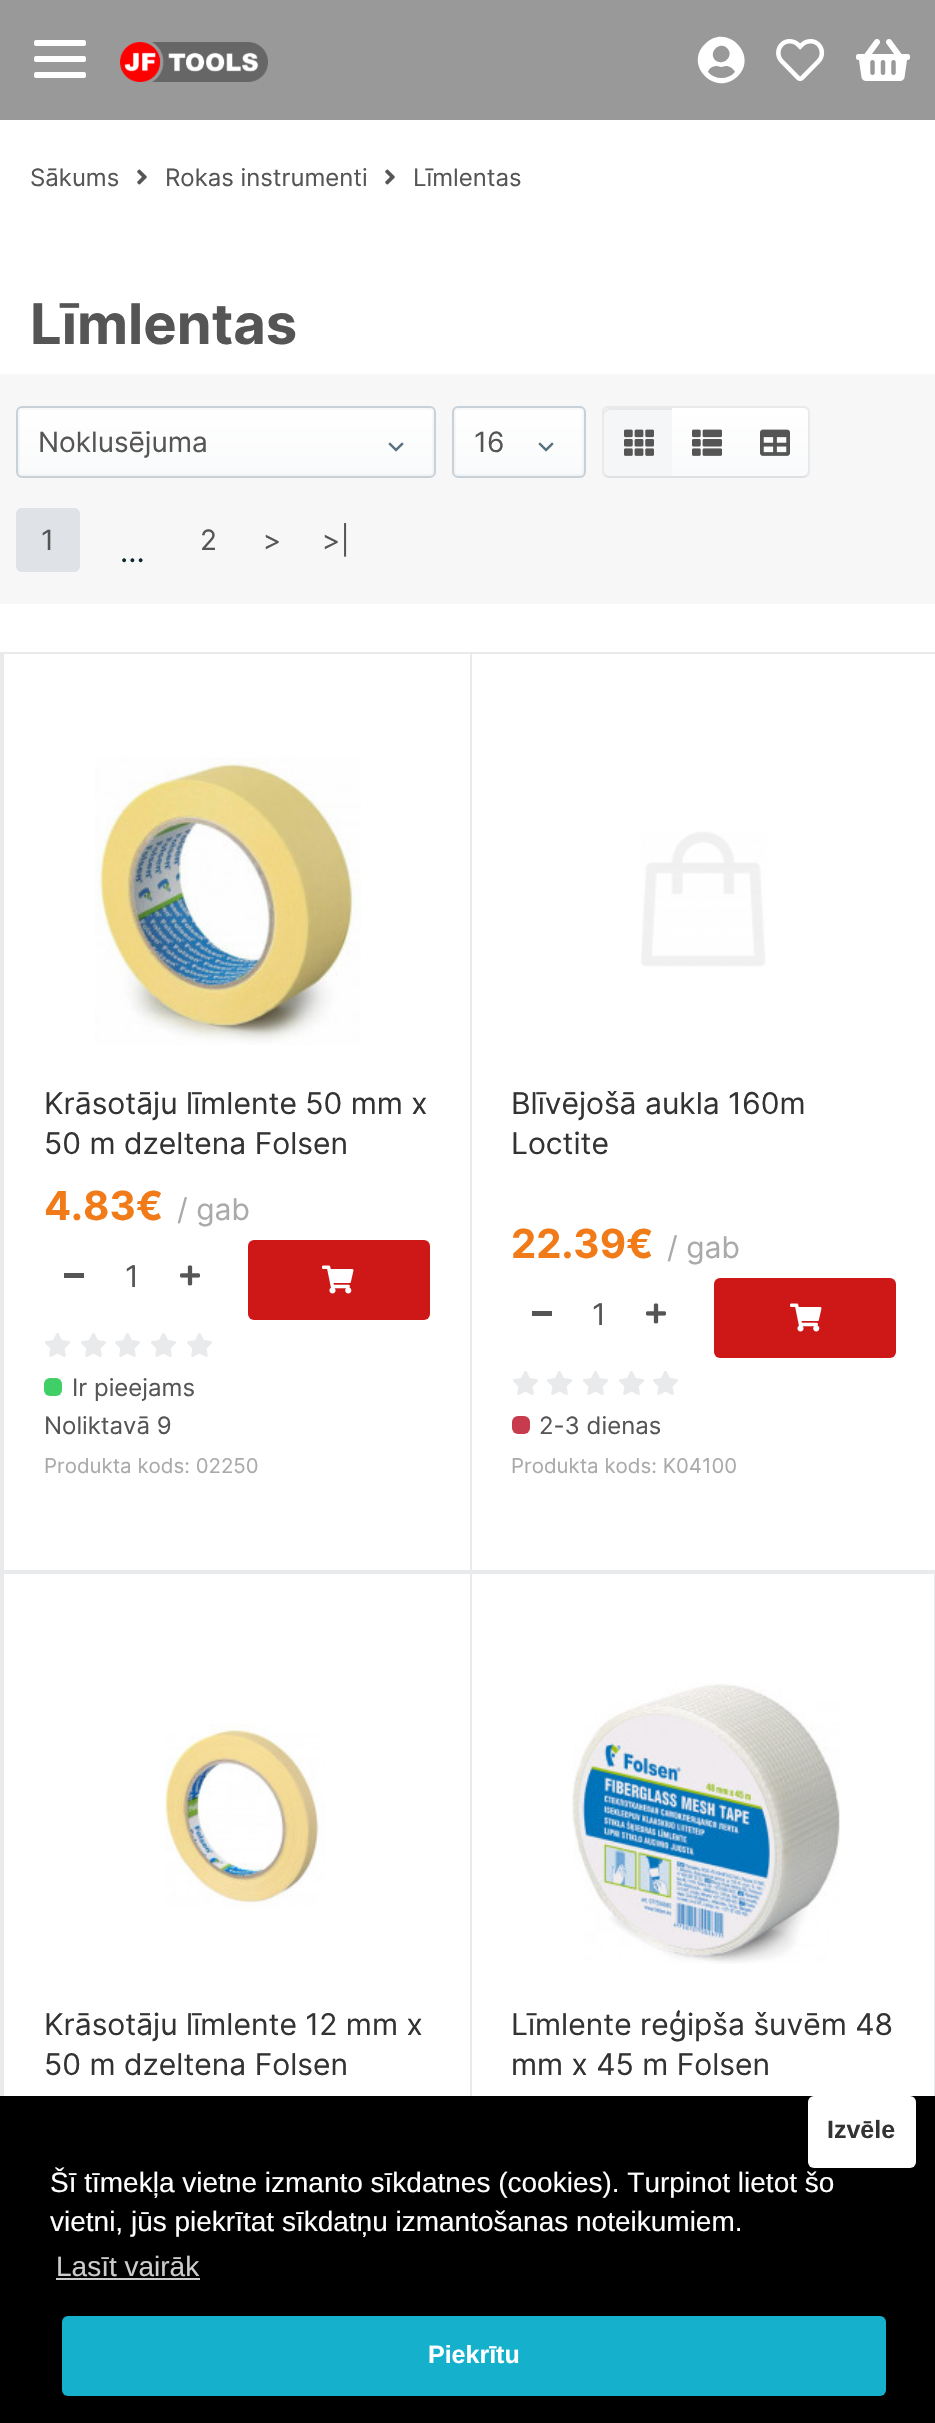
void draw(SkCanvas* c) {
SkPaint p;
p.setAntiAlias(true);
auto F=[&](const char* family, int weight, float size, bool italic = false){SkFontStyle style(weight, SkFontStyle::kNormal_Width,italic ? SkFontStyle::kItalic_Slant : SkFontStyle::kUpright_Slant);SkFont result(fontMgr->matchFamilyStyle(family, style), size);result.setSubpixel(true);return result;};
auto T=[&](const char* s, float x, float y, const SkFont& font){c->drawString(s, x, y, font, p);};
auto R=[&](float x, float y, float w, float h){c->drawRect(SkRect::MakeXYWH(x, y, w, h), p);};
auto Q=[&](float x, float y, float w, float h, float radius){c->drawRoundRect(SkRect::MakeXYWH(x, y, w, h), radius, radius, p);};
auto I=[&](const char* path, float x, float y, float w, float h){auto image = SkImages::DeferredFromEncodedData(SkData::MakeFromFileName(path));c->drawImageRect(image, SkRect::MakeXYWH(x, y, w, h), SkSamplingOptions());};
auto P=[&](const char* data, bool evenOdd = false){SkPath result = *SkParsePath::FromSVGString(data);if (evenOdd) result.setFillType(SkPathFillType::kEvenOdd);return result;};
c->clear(0xffffffff);
p.setColor(0xff999999);
R(0,0,935,120);
p.setColor(0xffffffff);
Q(34,40,52,6,2);
Q(34,56,52,6,2);
Q(34,72,52,6,2);
I("1.png",120,42,148,40);
c->drawPath(P("M705 44c21-22 54 11 33 32c-22 22-55-11-33-32zm22 4c-7-7-19 4-12 12c8 7 20-4 12-12zm-19 24c7 8 20 8 27 0c-2-4-6-6-9-6l-5 1l-4-1c-4 0-8 2-9 6z"),p);
I("2.png",776,39,49,42);
I("3.png",856,39,54,42);
auto f1 = F("Inter",400,24);
p.setColor(0xff555555);
T("Sākums",30,186,f1);
I("4.png",137,169,10,16);
T("Rokas instrumenti",165,186,f1);
I("4.png",385,169,10,16);
T("Līmlentas",413,186,f1);
auto f2 = F("Inter",700,56);
T("Līmlentas",30,344,f2);
p.setColor(0xfff7f7f7);
R(0,374,935,230);
c->save();
c->clipPath(P("M22 406h408c3.5 0 6 2.5 6 6v60c0 3.5-2.5 6-6 6h-408c-3.5 0-6-2.5-6-6v-60c0-3.5 2.5-6 6-6z"),true);
{
const SkColor colors[] = {0xffffffff,0xfff9fafb};
const float stops[] = {0,1};
const SkPoint ends[] = {{226,408}, {226,476}};
p.setShader(SkGradientShader::MakeLinear(ends, colors, stops, 2, SkTileMode::kClamp));
p.setAlpha(255);
}
R(16,408,420,68);
c->restore();
p.setStroke(true);
p.setStrokeWidth(2);
p.setShader(nullptr);
p.setColor(0x0d66717b);
c->drawRect(SkRect::MakeXYWH(19,409,414,66),p);
p.setColor(0xffc9d1d8);
c->drawRoundRect(SkRect::MakeXYWH(17,407,418,70),5,5,p);
auto f3 = F("Inter",400,28);
p.setStroke(false);
p.setColor(0xff555555);
T("Noklusējuma",38,452,f3);
I("5.png",388,442,16,10);
c->save();
c->clipPath(P("M458 406h122c3.5 0 6 2.5 6 6v60c0 3.5-2.5 6-6 6h-122c-3.5 0-6-2.5-6-6v-60c0-3.5 2.5-6 6-6z"),true);
{
const SkColor colors[] = {0xffffffff,0xfff9fafb};
const float stops[] = {0,1};
const SkPoint ends[] = {{519,408}, {519,476}};
p.setShader(SkGradientShader::MakeLinear(ends, colors, stops, 2, SkTileMode::kClamp));
p.setAlpha(255);
}
R(452,408,134,68);
c->restore();
p.setStroke(true);
p.setShader(nullptr);
p.setColor(0x0d66717b);
c->drawRect(SkRect::MakeXYWH(455,409,128,66),p);
p.setColor(0xffc9d1d8);
c->drawRoundRect(SkRect::MakeXYWH(453,407,132,70),5,5,p);
p.setStroke(false);
p.setColor(0xff555555);
T("16",474,452,f3);
I("5.png",538,442,16,10);
p.setStroke(true);
p.setColor(0xffe9eaec);
c->drawRoundRect(SkRect::MakeXYWH(603,407,206,70),5,5,p);
p.setStroke(false);
p.setColor(0x0d161d25);
c->drawPath(P("M604 470v2c0 3 3 6 6 6h62v-2h-62c-3 0-6-3-6-6z"),p);
p.setColor(0xfff4f6f8);
c->drawPath(P("M610 408h62v68h-62c-3.5 0-6-2.5-6-6v-56c0-3.5 2.5-6 6-6z"),p);
p.setColor(0xffe6e9ec);
c->drawPath(P("M610 410h62v-2h-62c-3 0-6 3-6 6v2c0-3 3-6 6-6z"),p);
I("6.png",624,429,30,27);
p.setColor(0xffdee0e2);
R(672,476,68,2);
{
const SkColor colors[] = {0xffffffff,0xfff9fafb};
const float stops[] = {0,1};
const SkPoint ends[] = {{706,408}, {706,476}};
p.setShader(SkGradientShader::MakeLinear(ends, colors, stops, 2, SkTileMode::kClamp));
p.setAlpha(255);
}
R(672,408,68,68);
I("7.png",692,429,30,27);
p.setShader(nullptr);
p.setColor(0x0d161d25);
c->drawPath(P("M740 476v2h62c3 0 6-3 6-6v-2c0 3-3 6-6 6z"),p);
{
const SkColor colors[] = {0xffffffff,0xfff9fafb};
const float stops[] = {0,1};
const SkPoint ends[] = {{774,408}, {774,476}};
p.setShader(SkGradientShader::MakeLinear(ends, colors, stops, 2, SkTileMode::kClamp));
p.setAlpha(255);
}
c->drawPath(P("M740 408h62c3.5 0 6 2.5 6 6v56c0 3.5-2.5 6-6 6h-62z"),p);
I("8.png",760,429,30,27);
p.setShader(nullptr);
p.setColor(0xffdfe3e8);
Q(16,508,64,64,6);
p.setColor(0xff555555);
T("1",41,550,f3);
T("2",200,550,f3);
auto f4 = F("Inter",400,30);
p.setColor(0xff0f2830);
T("...",120,562,f4);
p.setColor(0xff555555);
T(">",263,550,f3);
T(">|",322,550,f3);
p.setColor(0xffe9eaec);
R(0,652,2,1444);
R(2,652,933,2);
R(2,1570,933,2);
R(2,652,2,920);
I("9.png",95,757,266,288);
p.setColor(0xff333333);
T("Krāsotāju līmlente 50 mm x",44,1114,f4);
T("50 m dzeltena Folsen",44,1154,f4);
auto f5 = F("Inter",700,40);
p.setColor(0xfff17b19);
T("4.83€",44,1220,f5);
p.setColor(0xffaaaaaa);
T("/ gab",177,1220,f4);
p.setColor(0xff555555);
R(64,1273,20,5);
T("1",125,1287,f4);
I("10.png",180,1265,20,21);
p.setColor(0xffce1717);
Q(248,1240,182,80,6);
I("11.png",322,1265,32,29);
I("12.png",45,1333,25,24);
I("12.png",81,1333,25,24);
I("12.png",115,1333,25,24);
I("12.png",151,1333,25,24);
I("12.png",187,1333,25,24);
p.setColor(0xff40ce66);
Q(44,1378,18,18,6);
p.setColor(0xff555555);
T("Ir pieejams",72,1396,f1);
T("Noliktavā 9",44,1434,f1);
auto f6 = F("Inter",400,20.5);
p.setColor(0xffaaaaaa);
T("Produkta kods: 02250",44,1473,f6);
p.setColor(0xffe9eaec);
R(470,652,2,920);
I("13.png",641,831,125,136);
p.setColor(0xff333333);
T("Blīvējošā aukla 160m",511,1114,f4);
T("Loctite",511,1154,f4);
p.setColor(0xfff17b19);
T("22.39€",511,1258,f5);
p.setColor(0xffaaaaaa);
T("/ gab",667,1258,f4);
p.setColor(0xff555555);
R(532,1311,20,5);
T("1",592,1325,f4);
I("10.png",646,1303,20,21);
p.setColor(0xffce1717);
Q(714,1278,182,80,6);
I("11.png",790,1303,32,29);
I("12.png",513,1371,25,24);
I("12.png",547,1371,25,24);
I("12.png",583,1371,25,24);
I("12.png",619,1371,25,24);
I("12.png",653,1371,25,24);
p.setColor(0xffc83a4d);
Q(512,1416,18,18,6);
p.setColor(0xff555555);
T("2-3 dienas",539,1434,f1);
p.setColor(0xffaaaaaa);
T("Produkta kods: K04100",511,1473,f6);
p.setColor(0xffe9eaec);
R(2,1572,468,2);
R(2,1572,2,524);
I("14.png",164,1724,161,184);
p.setColor(0xff333333);
T("Krāsotāju līmlente 12 mm x",44,2035,f4);
T("50 m dzeltena Folsen",44,2075,f4);
p.setStroke(true);
p.setColor(0xffe9eaec);
c->drawRect(SkRect::MakeXYWH(471,1573,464,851),p);
I("15.png",572,1683,268,281);
p.setStroke(false);
p.setColor(0xff333333);
T("Līmlente reģipša šuvēm 48",511,2035,f4);
T("mm x 45 m Folsen",511,2075,f4);
p.setColor(0xff000000);
R(0,2096,935,327);
p.setColor(0xffffffff);
Q(808,2096,108,72,6);
auto f7 = F("Liberation Sans",700,25);
p.setColor(0xff333333);
T("Izvēle",827,2138,f7);
p.setColor(0xff14b0cc);
Q(62,2316,824,80,6);
p.setColor(0xffffffff);
T("Piekrītu",428,2363,f7);
auto f8 = F("Liberation Sans",400,28);
T("Šī tīmekļa vietne izmanto sīkdatnes (cookies). Turpinot lietot šo",50,2192,f8);
T("vietni, jūs piekrītat sīkdatņu izmantošanas noteikumiem.",50,2231,f8);
p.setColor(0xffcccccc);
T("Lasīt vairāk",56,2276,f8);
R(56,2278,144,2);
}
